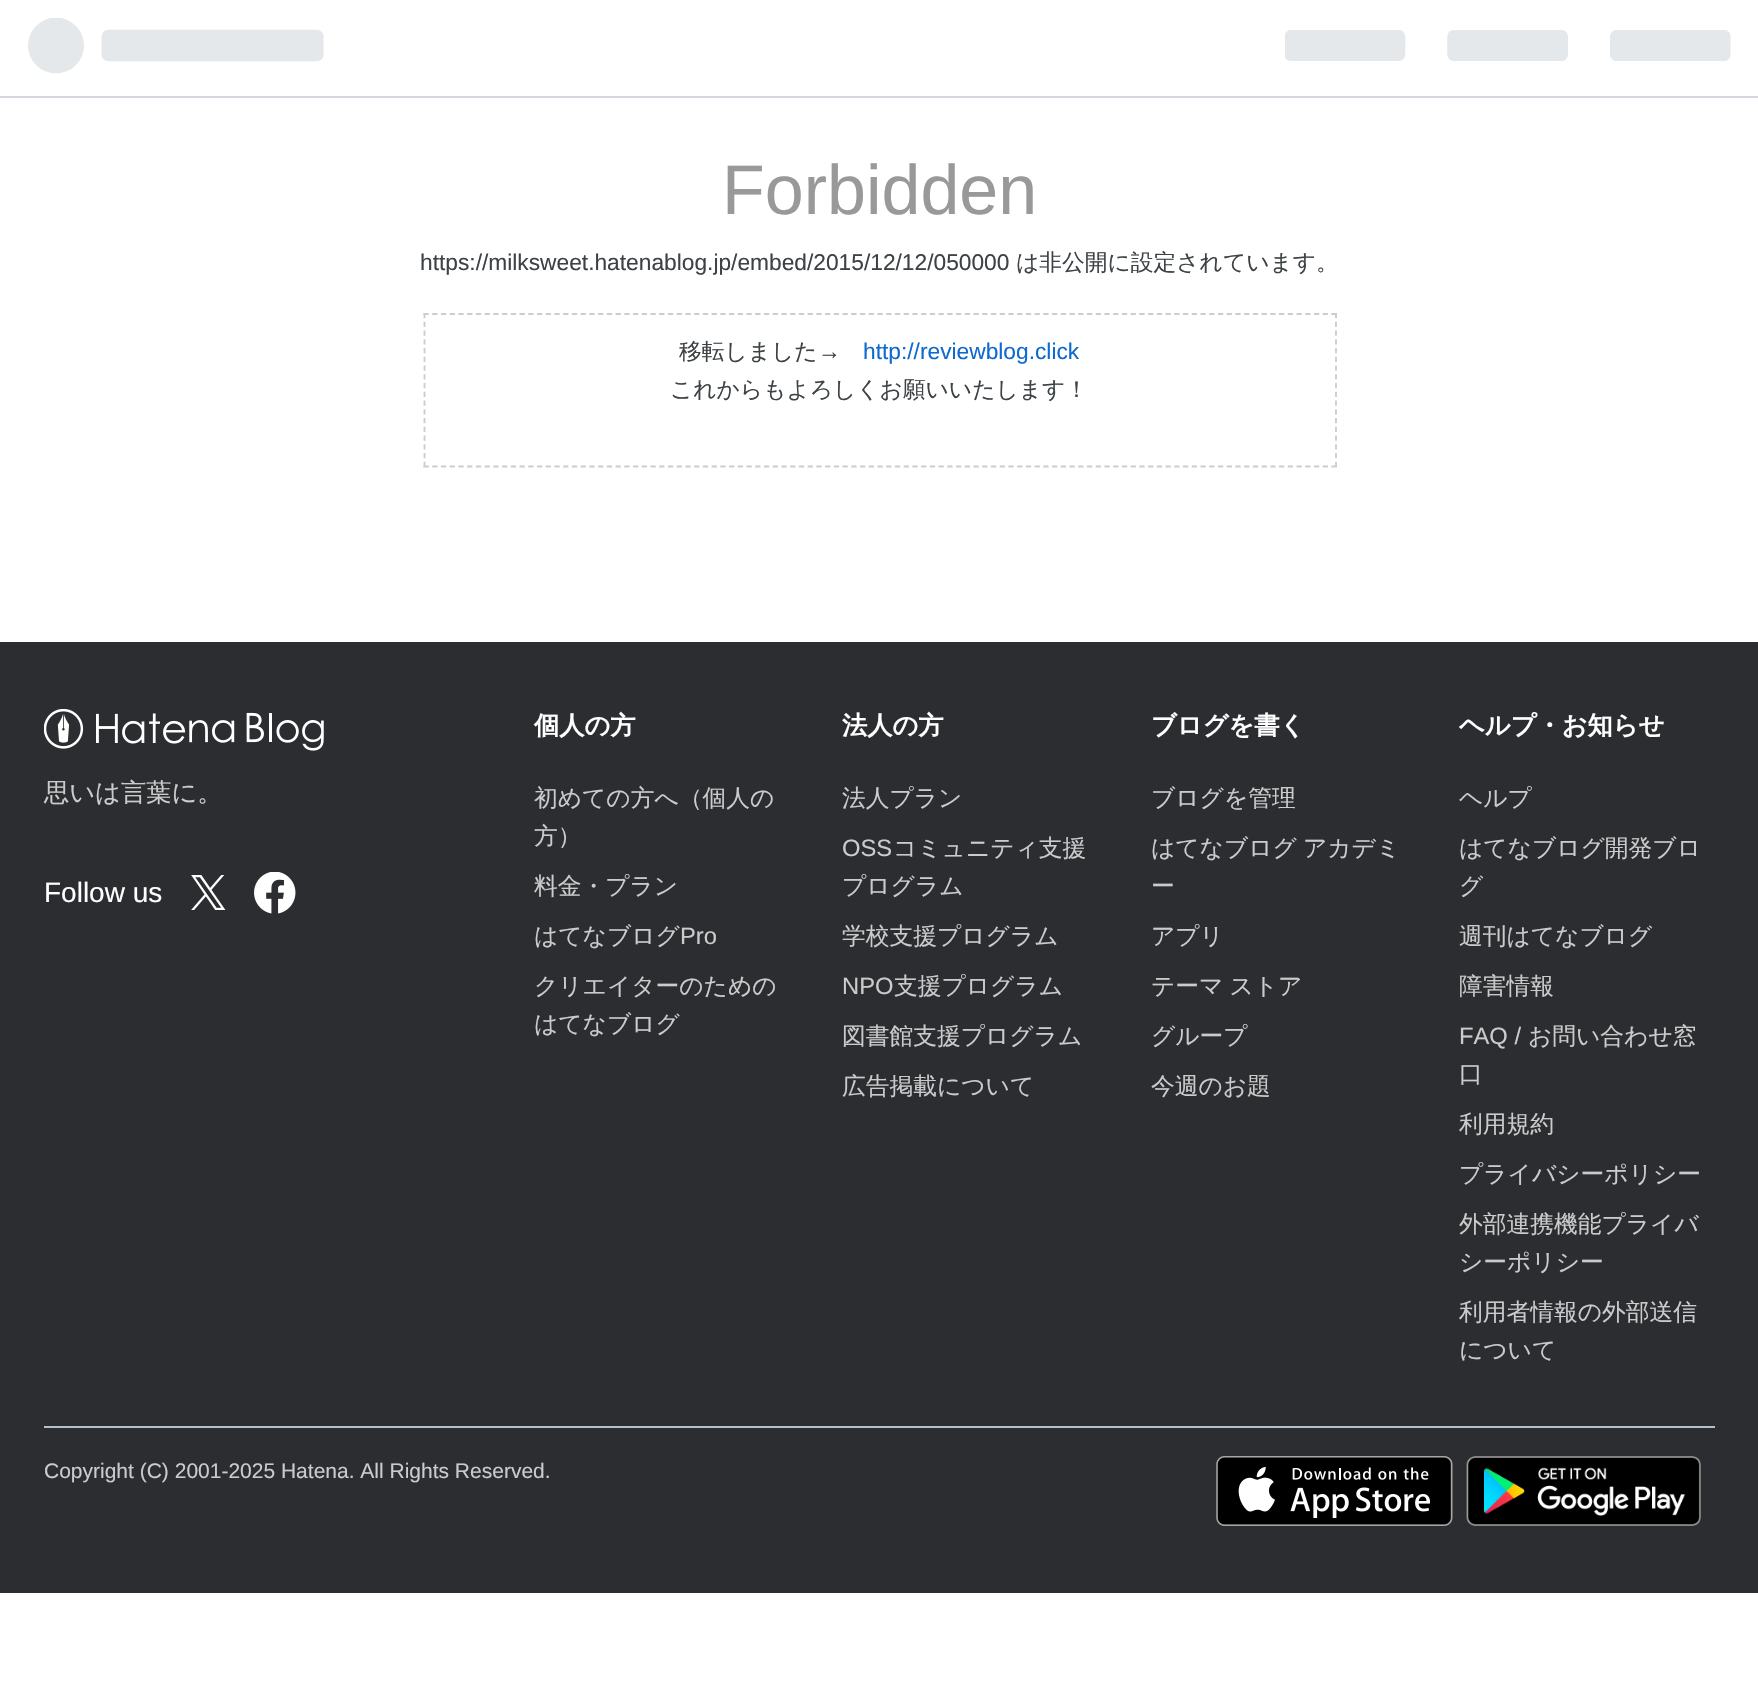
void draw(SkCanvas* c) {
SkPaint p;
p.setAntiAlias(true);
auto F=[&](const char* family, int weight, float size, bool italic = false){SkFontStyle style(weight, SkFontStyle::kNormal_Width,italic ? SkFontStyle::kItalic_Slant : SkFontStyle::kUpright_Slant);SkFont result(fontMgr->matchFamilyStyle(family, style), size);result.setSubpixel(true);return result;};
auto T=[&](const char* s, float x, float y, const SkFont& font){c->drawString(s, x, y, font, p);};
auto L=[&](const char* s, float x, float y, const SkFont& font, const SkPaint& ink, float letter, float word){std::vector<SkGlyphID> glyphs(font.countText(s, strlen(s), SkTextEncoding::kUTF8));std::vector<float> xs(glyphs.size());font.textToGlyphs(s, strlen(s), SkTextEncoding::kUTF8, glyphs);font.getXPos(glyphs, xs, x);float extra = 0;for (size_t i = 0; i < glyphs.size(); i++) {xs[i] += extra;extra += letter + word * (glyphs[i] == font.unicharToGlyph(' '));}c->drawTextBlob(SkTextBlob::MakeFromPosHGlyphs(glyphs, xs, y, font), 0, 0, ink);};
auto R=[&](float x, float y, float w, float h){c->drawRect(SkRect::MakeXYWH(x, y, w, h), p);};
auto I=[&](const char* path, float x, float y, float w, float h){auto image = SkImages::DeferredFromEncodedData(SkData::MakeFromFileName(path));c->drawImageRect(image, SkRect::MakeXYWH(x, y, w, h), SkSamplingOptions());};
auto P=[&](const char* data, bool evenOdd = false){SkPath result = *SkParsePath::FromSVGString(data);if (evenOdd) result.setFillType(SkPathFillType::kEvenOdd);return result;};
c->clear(0xffffffff);
p.setColor(0xffd2d8dd);
R(0,96,1758,2);
I("1.png",28,18,296,56);
I("2.png",1285,30,446,31);
auto f1 = F("Liberation Sans",400,70);
p.setColor(0xff999999);
T("Forbidden",722,214,f1);
auto f2 = F("Liberation Sans",400,22.75);
p.setColor(0xff3d4245);
T("https://milksweet.hatenablog.jp/embed/2015/12/12/050000",420,270,f2);
auto f3 = F("WenQuanYi Zen Hei",500,22.75);
T("は非公開に設定されています。",1016,270,f3);
p.setStroke(true);
p.setStrokeWidth(1.8);
p.setColor(0xffcccccc);
p.setPathEffect(SkDashPathEffect::Make({{5.25f,3.48f}}, 0));
c->drawPath(P("M423.5 314h913.5"),p);
p.setPathEffect(nullptr);
p.setPathEffect(SkDashPathEffect::Make({{5.25f,3.5f}}, 0));
c->drawPath(P("M1336 313v154"),p);
p.setPathEffect(nullptr);
p.setPathEffect(SkDashPathEffect::Make({{5.25f,3.48f}}, 0));
c->drawPath(P("M423.5 466.5h913.5"),p);
p.setPathEffect(nullptr);
p.setPathEffect(SkDashPathEffect::Make({{5.25f,3.5f}}, 0));
c->drawPath(P("M424.5 313v154"),p);
p.setPathEffect(nullptr);
p.setStroke(false);
p.setColor(0xff3d4245);
T("移転しました",679,359,f3);
T("→",818,359,f2);
p.setColor(0xff0e6ace);
T("http://reviewblog.click",863,359,f2);
p.setColor(0xff3d4245);
T("これからもよろしくお願いいたします！",670,397,f3);
p.setColor(0xff2c2d30);
R(0,642,1758,951);
I("3.png",44,709,280,42);
auto f4 = F("WenQuanYi Zen Hei",500,25.25);
p.setColor(0xffcacbcb);
T("思いは言葉に。",44,801,f4);
auto f5 = F("Liberation Sans",400,28);
p.setColor(0xffffffff);
T("Follow us",44,902,f5);
I("4.png",191,875,35,35);
I("5.png",254,872,42,42);
auto f6 = F("WenQuanYi Zen Hei",700,25.25);
T("個人の方",534,734,f6);
auto f7 = F("WenQuanYi Zen Hei",500,23.75);
p.setColor(0xffcacbcb);
T("初めての方へ（個人の",534,806,f7);
T("方）",534,844,f7);
T("料金・プラン",534,894,f7);
T("はてなブログ",534,944,f7);
auto f8 = F("Liberation Sans",400,23.75);
T("Pro",680,944,f8);
T("クリエイターのための",534,994,f7);
T("はてなブログ",534,1032,f7);
p.setColor(0xffffffff);
T("法人の方",842,734,f6);
p.setColor(0xffcacbcb);
T("法人プラン",842,806,f7);
T("OSS",842,856,f8);
T("コミュニティ支援",893,856,f7);
T("プログラム",842,894,f7);
T("学校支援プログラム",842,944,f7);
T("NPO",842,994,f8);
T("支援プログラム",894,994,f7);
T("図書館支援プログラム",842,1044,f7);
T("広告掲載について",842,1094,f7);
p.setColor(0xffffffff);
T("ブログを書く",1151,734,f6);
p.setColor(0xffcacbcb);
T("ブログを管理",1151,806,f7);
L("はてなブログ アカデミ",1151,856,f7,p,0,-1);
T("ー",1151,894,f7);
T("アプリ",1151,944,f7);
L("テーマ ストア",1151,994,f7,p,0,-1);
T("グループ",1151,1044,f7);
T("今週のお題",1151,1094,f7);
p.setColor(0xffffffff);
T("ヘルプ・お知らせ",1459,734,f6);
p.setColor(0xffcacbcb);
T("ヘルプ",1459,806,f7);
T("はてなブログ開発ブロ",1459,856,f7);
T("グ",1459,894,f7);
T("週刊はてなブログ",1459,944,f7);
T("障害情報",1459,994,f7);
T("FAQ /",1459,1044,f8);
T("お問い合わせ窓",1528,1044,f7);
T("口",1459,1082,f7);
T("利用規約",1459,1132,f7);
T("プライバシーポリシー",1459,1182,f7);
T("外部連携機能プライバ",1459,1232,f7);
T("シーポリシー",1459,1270,f7);
T("利用者情報の外部送信",1459,1320,f7);
T("について",1459,1358,f7);
p.setColor(0xffb5bfc7);
R(44,1426,1671,2);
auto f9 = F("Liberation Sans",400,21);
p.setColor(0xffcacbcb);
T("Copyright (C) 2001-2025 Hatena. All Rights Reserved.",44,1478,f9);
I("6.png",1216,1456,237,70);
I("7.png",1466,1456,235,70);
}
